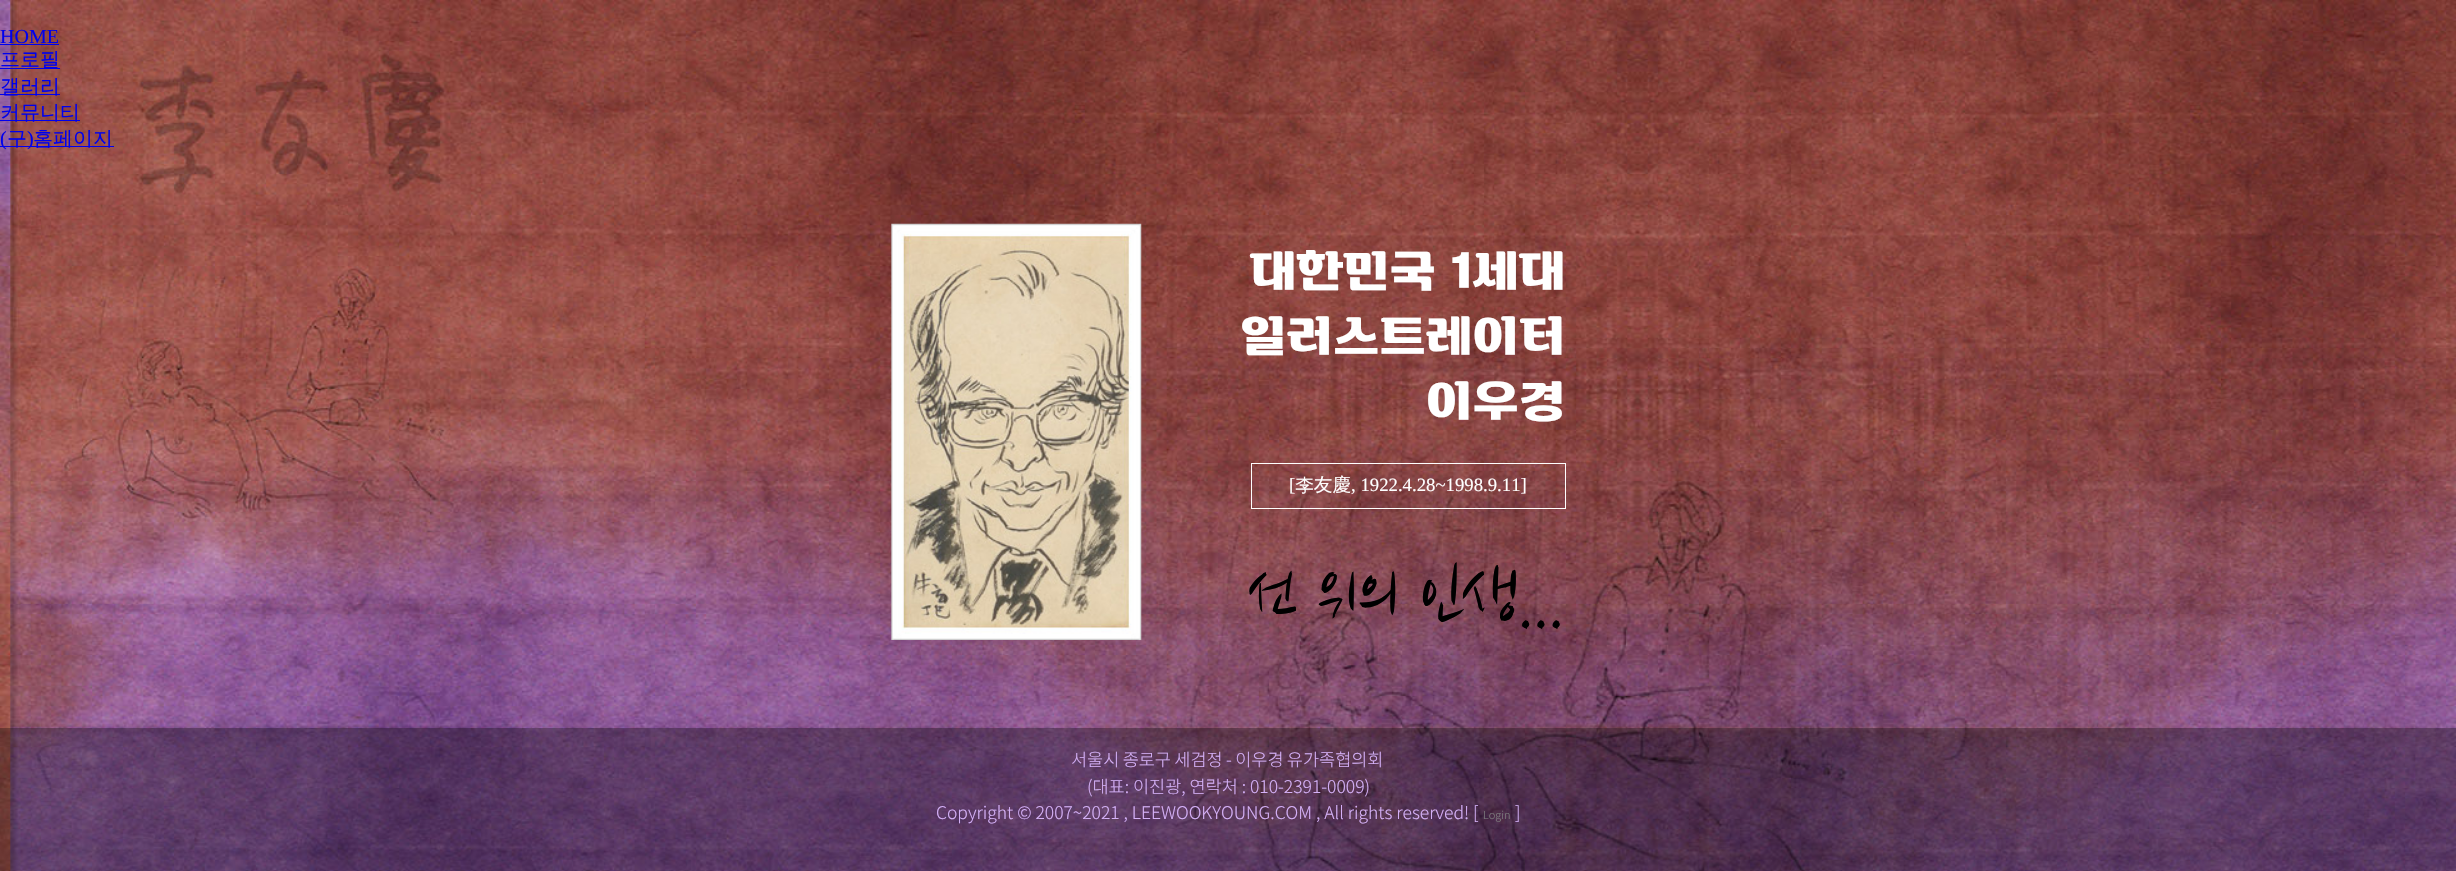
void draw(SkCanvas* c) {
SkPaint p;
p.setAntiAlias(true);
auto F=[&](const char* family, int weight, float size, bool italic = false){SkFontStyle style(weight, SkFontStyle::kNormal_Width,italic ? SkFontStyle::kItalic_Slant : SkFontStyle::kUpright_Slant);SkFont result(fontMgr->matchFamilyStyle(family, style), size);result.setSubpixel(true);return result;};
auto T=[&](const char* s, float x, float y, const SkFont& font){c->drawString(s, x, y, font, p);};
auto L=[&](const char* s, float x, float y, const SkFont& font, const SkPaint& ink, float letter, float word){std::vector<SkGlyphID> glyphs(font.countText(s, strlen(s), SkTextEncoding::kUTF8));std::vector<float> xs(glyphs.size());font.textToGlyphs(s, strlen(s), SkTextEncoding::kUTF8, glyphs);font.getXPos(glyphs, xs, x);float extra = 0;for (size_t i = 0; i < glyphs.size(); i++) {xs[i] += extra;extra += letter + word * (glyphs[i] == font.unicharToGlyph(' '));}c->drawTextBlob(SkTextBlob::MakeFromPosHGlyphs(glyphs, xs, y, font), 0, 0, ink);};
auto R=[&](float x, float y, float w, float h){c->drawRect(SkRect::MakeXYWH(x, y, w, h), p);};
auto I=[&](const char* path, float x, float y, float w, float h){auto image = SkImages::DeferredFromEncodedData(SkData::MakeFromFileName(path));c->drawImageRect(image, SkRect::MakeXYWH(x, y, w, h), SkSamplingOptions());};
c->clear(0xffffffff);
I("1.png",0,0,2456,871);
auto f1 = F("Liberation Serif",400,20);
p.setColor(0xff0000ee);
T("HOME",0,43,f1);
R(0,44,59,1);
R(0,68,60,1);
auto f2 = F("WenQuanYi Zen Hei",500,20);
T("프로필",0,66,f2);
R(0,94,60,1);
T("갤러리",0,93,f2);
R(0,120,80,1);
T("커뮤니티",0,119,f2);
R(0,146,114,1);
T("(",0,145,f1);
T("구",7,145,f2);
T(")",27,145,f1);
T("홈페이지",33,145,f2);
I("2.png",891,223,251,417);
auto f3 = F("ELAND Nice",400,50);
p.setColor(0xffffffff);
T("대한민국 1세대",1250,287,f3);
T("일러스트레이터",1240,352,f3);
T("이우경",1426,417,f3);
p.setStroke(true);
p.setStrokeWidth(1);
c->drawRect(SkRect::MakeXYWH(1251.5,463.5,314,45),p);
auto f4 = F("Liberation Serif",400,18.75);
p.setStroke(false);
T("[",1289,491,f4);
auto f5 = F("WenQuanYi Zen Hei",500,18.75);
T("李友慶",1295,491,f5);
T(", 1922.4.28~1998.9.11]",1351,491,f4);
auto f6 = F("Nanum Brush Script",400,76);
p.setColor(0xff000000);
T("선 위의 인생...",1247,608,f6);
p.setColor(0x4d000000);
R(0,728,2456,143);
auto f7 = F("Noto Sans KR",300,17.5);
p.setColor(0xffd5b1f8);
L("서울시 종로구 세검정 - 이우경 유가족협의회",1071,766,f7,p,0,-.5);
T("(대표: 이진광, 연락처 : 010-2391-0009)",1087,793,f7);
T("Copyright © 2007~2021 , LEEWOOKYOUNG.COM , All rights reserved! [",936,819,f7);
auto f8 = F("Noto Sans KR",300,11);
p.setColor(0xff808080);
T("Login",1483,819,f8);
p.setColor(0xffd5b1f8);
T("]",1515,819,f7);
}
